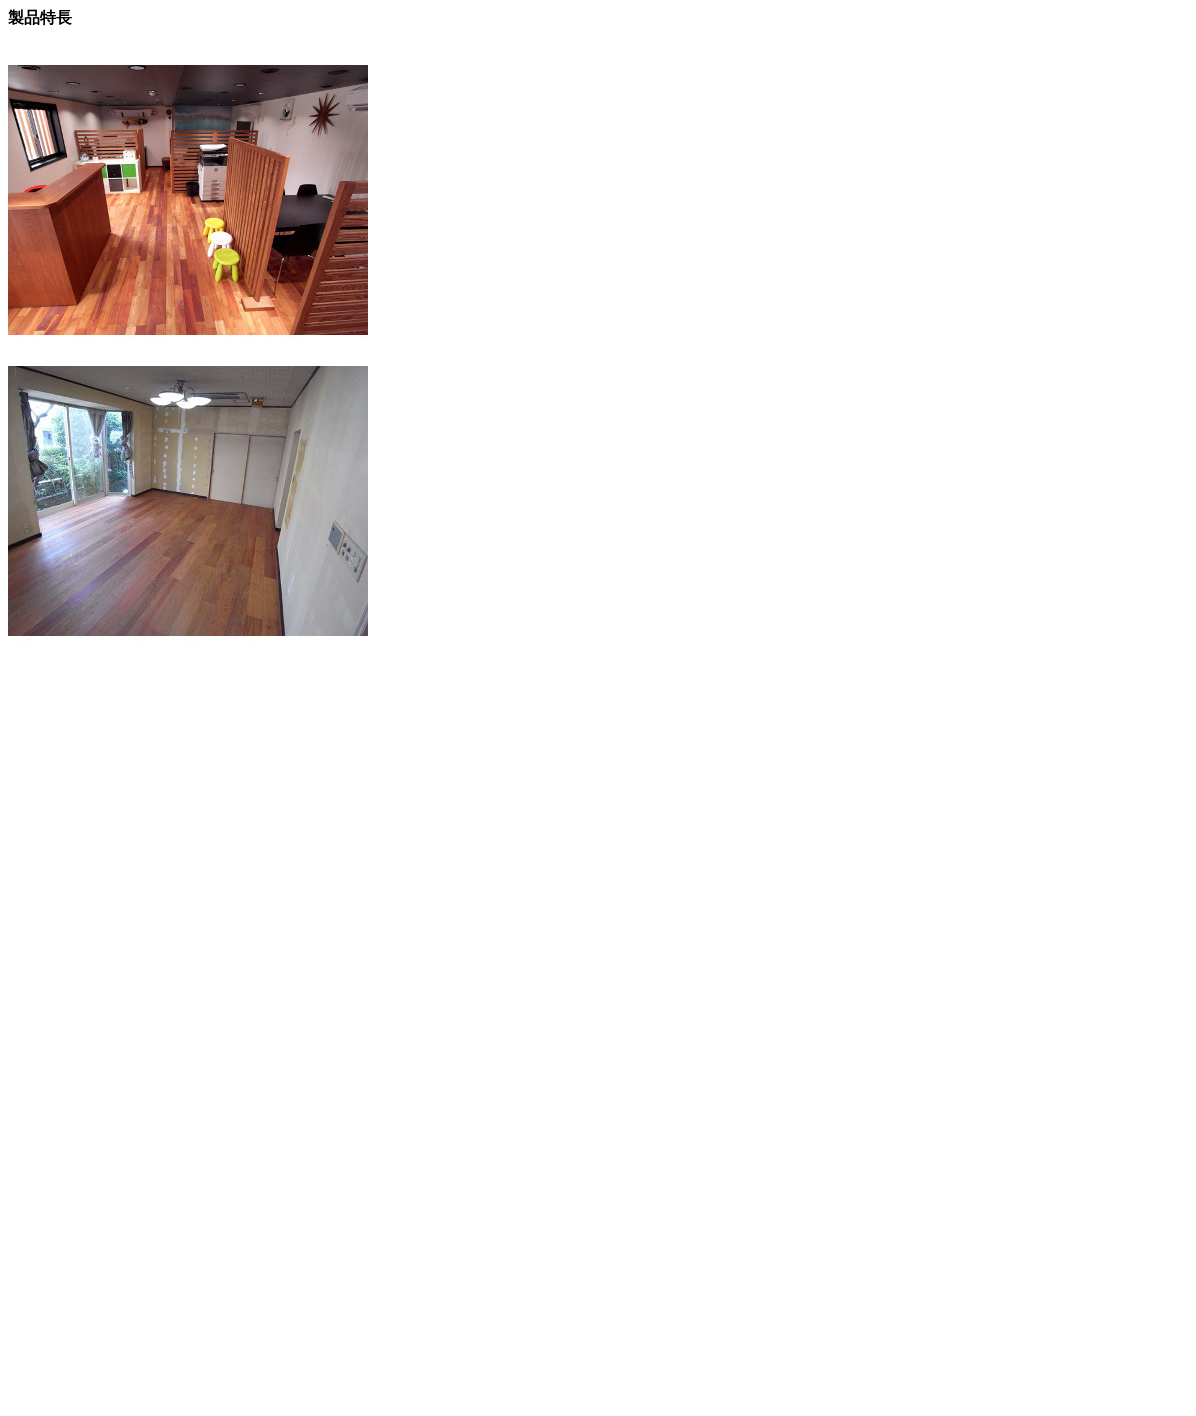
void draw(SkCanvas* c) {
SkPaint p;
p.setAntiAlias(true);
auto F=[&](const char* family, int weight, float size, bool italic = false){SkFontStyle style(weight, SkFontStyle::kNormal_Width,italic ? SkFontStyle::kItalic_Slant : SkFontStyle::kUpright_Slant);SkFont result(fontMgr->matchFamilyStyle(family, style), size);result.setSubpixel(true);return result;};
auto T=[&](const char* s, float x, float y, const SkFont& font){c->drawString(s, x, y, font, p);};
auto I=[&](const char* path, float x, float y, float w, float h){auto image = SkImages::DeferredFromEncodedData(SkData::MakeFromFileName(path));c->drawImageRect(image, SkRect::MakeXYWH(x, y, w, h), SkSamplingOptions());};
c->clear(0xffffffff);
auto f1 = F("WenQuanYi Zen Hei",700,16);
p.setColor(0xff000000);
T("製品特長",8,23,f1);
I("1.png",8,63,360,579);
}
